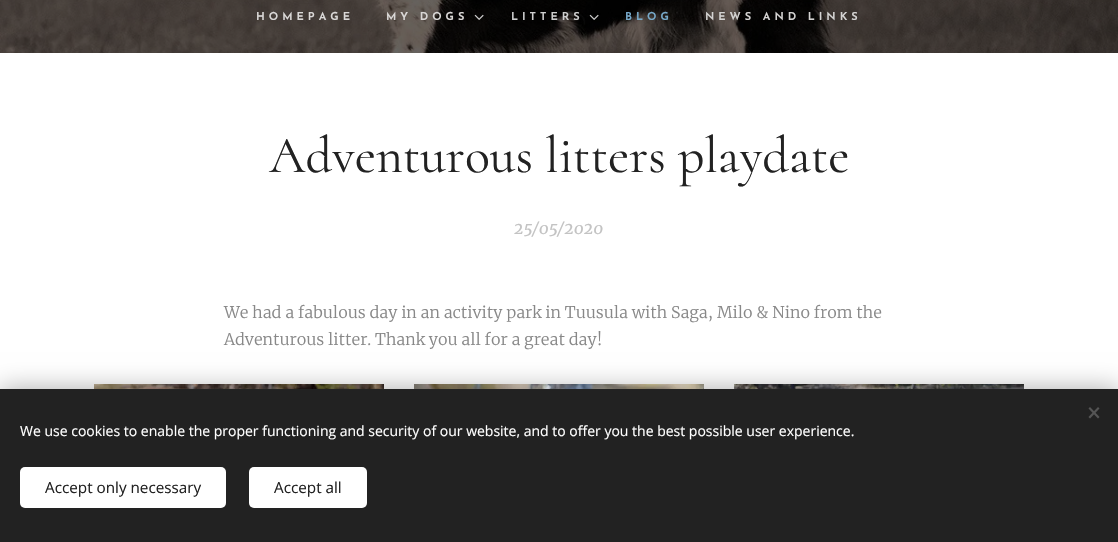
void draw(SkCanvas* c) {
SkPaint p;
p.setAntiAlias(true);
auto F=[&](const char* family, int weight, float size, bool italic = false){SkFontStyle style(weight, SkFontStyle::kNormal_Width,italic ? SkFontStyle::kItalic_Slant : SkFontStyle::kUpright_Slant);SkFont result(fontMgr->matchFamilyStyle(family, style), size);result.setSubpixel(true);return result;};
auto T=[&](const char* s, float x, float y, const SkFont& font){c->drawString(s, x, y, font, p);};
auto L=[&](const char* s, float x, float y, const SkFont& font, const SkPaint& ink, float letter, float word){std::vector<SkGlyphID> glyphs(font.countText(s, strlen(s), SkTextEncoding::kUTF8));std::vector<float> xs(glyphs.size());font.textToGlyphs(s, strlen(s), SkTextEncoding::kUTF8, glyphs);font.getXPos(glyphs, xs, x);float extra = 0;for (size_t i = 0; i < glyphs.size(); i++) {xs[i] += extra;extra += letter + word * (glyphs[i] == font.unicharToGlyph(' '));}c->drawTextBlob(SkTextBlob::MakeFromPosHGlyphs(glyphs, xs, y, font), 0, 0, ink);};
auto R=[&](float x, float y, float w, float h){c->drawRect(SkRect::MakeXYWH(x, y, w, h), p);};
auto Q=[&](float x, float y, float w, float h, float radius){c->drawRoundRect(SkRect::MakeXYWH(x, y, w, h), radius, radius, p);};
auto I=[&](const char* path, float x, float y, float w, float h){auto image = SkImages::DeferredFromEncodedData(SkData::MakeFromFileName(path));c->drawImageRect(image, SkRect::MakeXYWH(x, y, w, h), SkSamplingOptions());};
auto P=[&](const char* data, bool evenOdd = false){SkPath result = *SkParsePath::FromSVGString(data);if (evenOdd) result.setFillType(SkPathFillType::kEvenOdd);return result;};
c->clear(0xffffffff);
I("1.png",0,0,1118,53);
auto f1 = F("Josefin Sans",600,11);
p.setColor(0xffdad8d7);
L("HOMEPAGE",256,20,f1,p,4,0);
L("MY DOGS",386,20,f1,p,4,0);
I("2.png",474,14,10,6);
p.setColor(0xffcecece);
L("LITTERS",511,20,f1,p,4,0);
I("3.png",589,14,10,6);
p.setColor(0xff77a9ca);
L("BLOG",625,20,f1,p,4,0);
p.setColor(0xffd4d3d2);
L("NEWS AND LINKS",705,20,f1,p,4,0);
auto f2 = F("Cormorant",400,52);
p.setColor(0xff222222);
T("Adventurous litters playdate",269,172,f2);
auto f3 = F("Merriweather",400,16,true);
p.setColor(0xffc3c3c3);
T("25/05/2020",514,234,f3);
auto f4 = F("Merriweather",300,16);
p.setColor(0xff888888);
T("We had a fabulous day in an activity park in Tuusula with Saga, Milo & Nino from the",224,318,f4);
T("Adventurous litter. Thank you all for a great day!",224,345,f4);
I("4.png",94,384,290,5);
I("5.png",414,384,290,5);
I("6.png",734,384,290,5);
p.setColor(0x54000000);
p.setMaskFilter(SkMaskFilter::MakeBlur(kNormal_SkBlurStyle, 12.5));
c->drawRect(SkRect::MakeXYWH(0,389,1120,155),p);
p.setMaskFilter(nullptr);
p.setColor(0xff222222);
R(0,389,1118,153);
p.setColor(0xff555555);
c->drawPath(P("M1088.5 417l9.5-10l1.5 1.5l-9.5 10z"),p);
c->drawPath(P("M1090 407l9.5 10l-1.5 1.5l-9.5-10z"),p);
auto f5 = F("Open Sans",400,14);
p.setColor(0xffffffff);
T("We use cookies to enable the proper functioning and security of our website, and to offer you the best possible user experience.",20,436,f5);
Q(20,467,206,41,5);
auto f6 = F("Open Sans",400,15.25);
p.setColor(0xff222222);
T("Accept only necessary",45,493,f6);
p.setColor(0xffffffff);
Q(249,467,118,41,5);
p.setColor(0xff222222);
T("Accept all",274,493,f6);
}
